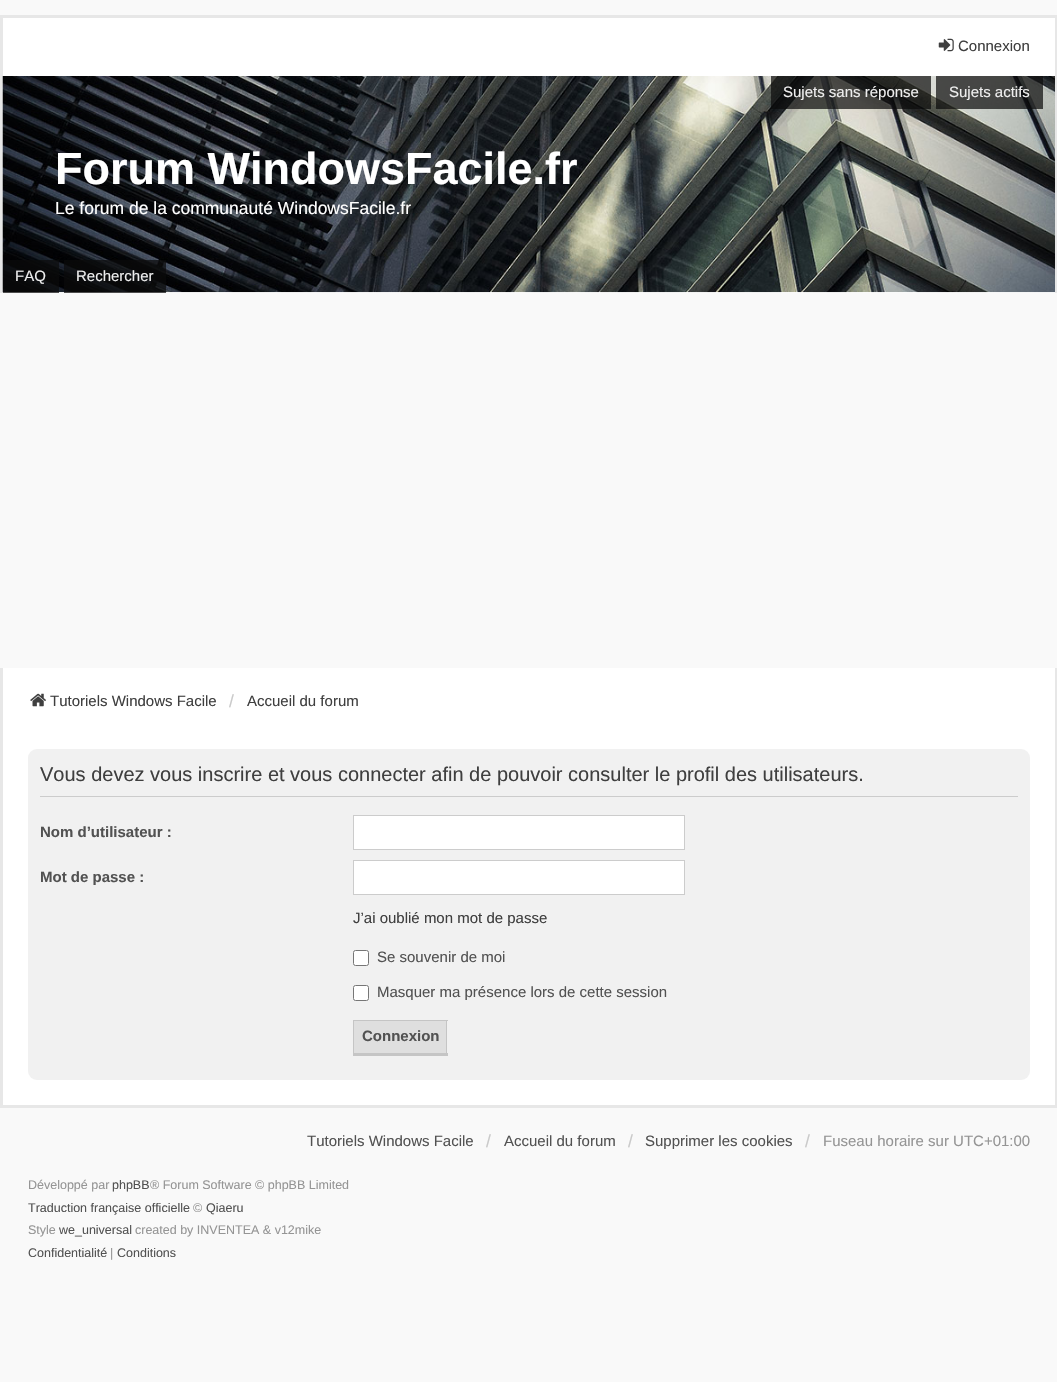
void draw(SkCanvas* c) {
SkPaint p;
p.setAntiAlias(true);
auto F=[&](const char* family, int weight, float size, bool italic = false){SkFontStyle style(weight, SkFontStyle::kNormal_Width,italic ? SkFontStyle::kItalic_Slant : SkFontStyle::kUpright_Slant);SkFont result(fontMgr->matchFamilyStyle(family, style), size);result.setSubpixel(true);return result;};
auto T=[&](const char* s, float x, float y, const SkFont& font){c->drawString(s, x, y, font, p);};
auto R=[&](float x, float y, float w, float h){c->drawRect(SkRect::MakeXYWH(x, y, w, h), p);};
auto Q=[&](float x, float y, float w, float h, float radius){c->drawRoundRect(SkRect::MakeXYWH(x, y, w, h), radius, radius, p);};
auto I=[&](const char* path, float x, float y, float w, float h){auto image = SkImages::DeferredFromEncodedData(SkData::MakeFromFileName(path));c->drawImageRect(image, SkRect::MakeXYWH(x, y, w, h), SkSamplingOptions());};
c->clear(0xfff9f9f9);
p.setColor(0xffffffff);
R(3,18,1052,58);
p.setColor(0xffe7e7e7);
R(0,15,1057,3);
R(1055,15,2,278);
R(0,15,3,278);
I("1.png",938,38,16,14);
auto f1 = F("Liberation Sans",400,15);
p.setColor(0xff3f3f3f);
T("Connexion",958,51,f1);
p.setColor(0xffffffff);
R(3,292,1052,1);
I("2.png",2,76,1053,217);
p.setColor(0xb30a0a0a);
R(771,76,160,33);
p.setColor(0xffeeeeee);
T("Sujets sans réponse",783,97,f1);
p.setColor(0xb30a0a0a);
R(936,76,107,33);
p.setColor(0xffeeeeee);
T("Sujets actifs",949,97,f1);
auto f2 = F("Liberation Sans",700,45);
p.setColor(0xffffffff);
T("Forum WindowsFacile.fr",55,184,f2);
auto f3 = F("Liberation Sans",400,17.5);
T("Le forum de la communauté WindowsFacile.fr",55,214,f3);
p.setColor(0xb30a0a0a);
R(3,260,56,33);
p.setColor(0xffeeeeee);
T("FAQ",15,281,f1);
p.setColor(0xb30a0a0a);
R(64,260,102,33);
p.setColor(0xffeeeeee);
T("Rechercher",76,281,f1);
p.setColor(0xffffffff);
R(3,668,1052,437);
p.setColor(0xffe7e7e7);
R(1055,668,2,440);
R(0,1105,1057,3);
R(0,668,3,440);
I("3.png",30,693,16,14);
p.setColor(0xff3f3f3f);
T("Tutoriels Windows Facile",50,706,f1);
p.setColor(0xffcacaca);
T("/",229,707,f3);
p.setColor(0xff3f3f3f);
T("Accueil du forum",247,706,f1);
p.setColor(0xfff1f1f1);
Q(28,749,1002,331,9);
p.setColor(0xffcccccc);
R(40,796,978,1);
auto f4 = F("Liberation Sans",400,20);
p.setColor(0xff3f3f3f);
T("Vous devez vous inscrire et vous connecter afin de pouvoir consulter le profil des utilisateurs.",40,781,f4);
auto f5 = F("Liberation Sans",700,15);
p.setColor(0xff525252);
T("Nom d’utilisateur :",40,837,f5);
p.setColor(0xffffffff);
c->drawRect(SkRect::MakeXYWH(353.5,815.5,331,34),p);
p.setStroke(true);
p.setStrokeWidth(1);
p.setColor(0xffcccccc);
c->drawRect(SkRect::MakeXYWH(353.5,815.5,331,34),p);
p.setStroke(false);
p.setColor(0xff525252);
T("Mot de passe :",40,882,f5);
p.setColor(0xffffffff);
c->drawRect(SkRect::MakeXYWH(353.5,860.5,331,34),p);
p.setStroke(true);
p.setColor(0xffcccccc);
c->drawRect(SkRect::MakeXYWH(353.5,860.5,331,34),p);
p.setStroke(false);
p.setColor(0xff3f3f3f);
T("J’ai oublié mon mot de passe",353,923,f1);
p.setColor(0xffffffff);
c->drawRoundRect(SkRect::MakeXYWH(353.5,950.5,15,15),2,2,p);
p.setStroke(true);
p.setColor(0xff767676);
c->drawRoundRect(SkRect::MakeXYWH(353.5,950.5,15,15),2,2,p);
p.setStroke(false);
p.setColor(0xff525252);
T("Se souvenir de moi",377,962,f1);
p.setColor(0xffffffff);
c->drawRoundRect(SkRect::MakeXYWH(353.5,985.5,15,15),2,2,p);
p.setStroke(true);
p.setColor(0xff767676);
c->drawRoundRect(SkRect::MakeXYWH(353.5,985.5,15,15),2,2,p);
p.setStroke(false);
p.setColor(0xff525252);
T("Masquer ma présence lors de cette session",377,997,f1);
p.setColor(0xffdfdfdf);
R(354,1021,92,32);
p.setColor(0xffc5c5c5);
R(353,1020,95,1);
R(446,1020,1,35);
R(353,1053,95,3);
R(353,1020,1,35);
p.setColor(0xff525252);
T("Connexion",362,1041,f5);
T("Tutoriels Windows Facile",307,1146,f1);
p.setColor(0xffcacaca);
T("/",486,1147,f3);
p.setColor(0xff525252);
T("Accueil du forum",504,1146,f1);
p.setColor(0xffcacaca);
T("/",628,1147,f3);
p.setColor(0xff525252);
T("Supprimer les cookies",645,1146,f1);
p.setColor(0xffcacaca);
T("/",805,1147,f3);
p.setColor(0xff959595);
T("Fuseau horaire sur UTC+01:00",823,1146,f1);
auto f6 = F("Liberation Sans",400,12.5);
T("Développé par",28,1189,f6);
p.setColor(0xff525252);
T("phpBB",112,1189,f6);
p.setColor(0xff959595);
T("® Forum Software © phpBB Limited",150,1189,f6);
p.setColor(0xff525252);
T("Traduction française officielle",28,1212,f6);
p.setColor(0xff959595);
T("©",193,1212,f6);
p.setColor(0xff525252);
T("Qiaeru",206,1212,f6);
p.setColor(0xff959595);
T("Style",28,1234,f6);
p.setColor(0xff525252);
T("we_universal",59,1234,f6);
p.setColor(0xff959595);
T("created by INVENTEA & v12mike",135,1234,f6);
p.setColor(0xff525252);
T("Confidentialité",28,1257,f6);
p.setColor(0xff959595);
T("|",110,1257,f6);
p.setColor(0xff525252);
T("Conditions",117,1257,f6);
}
